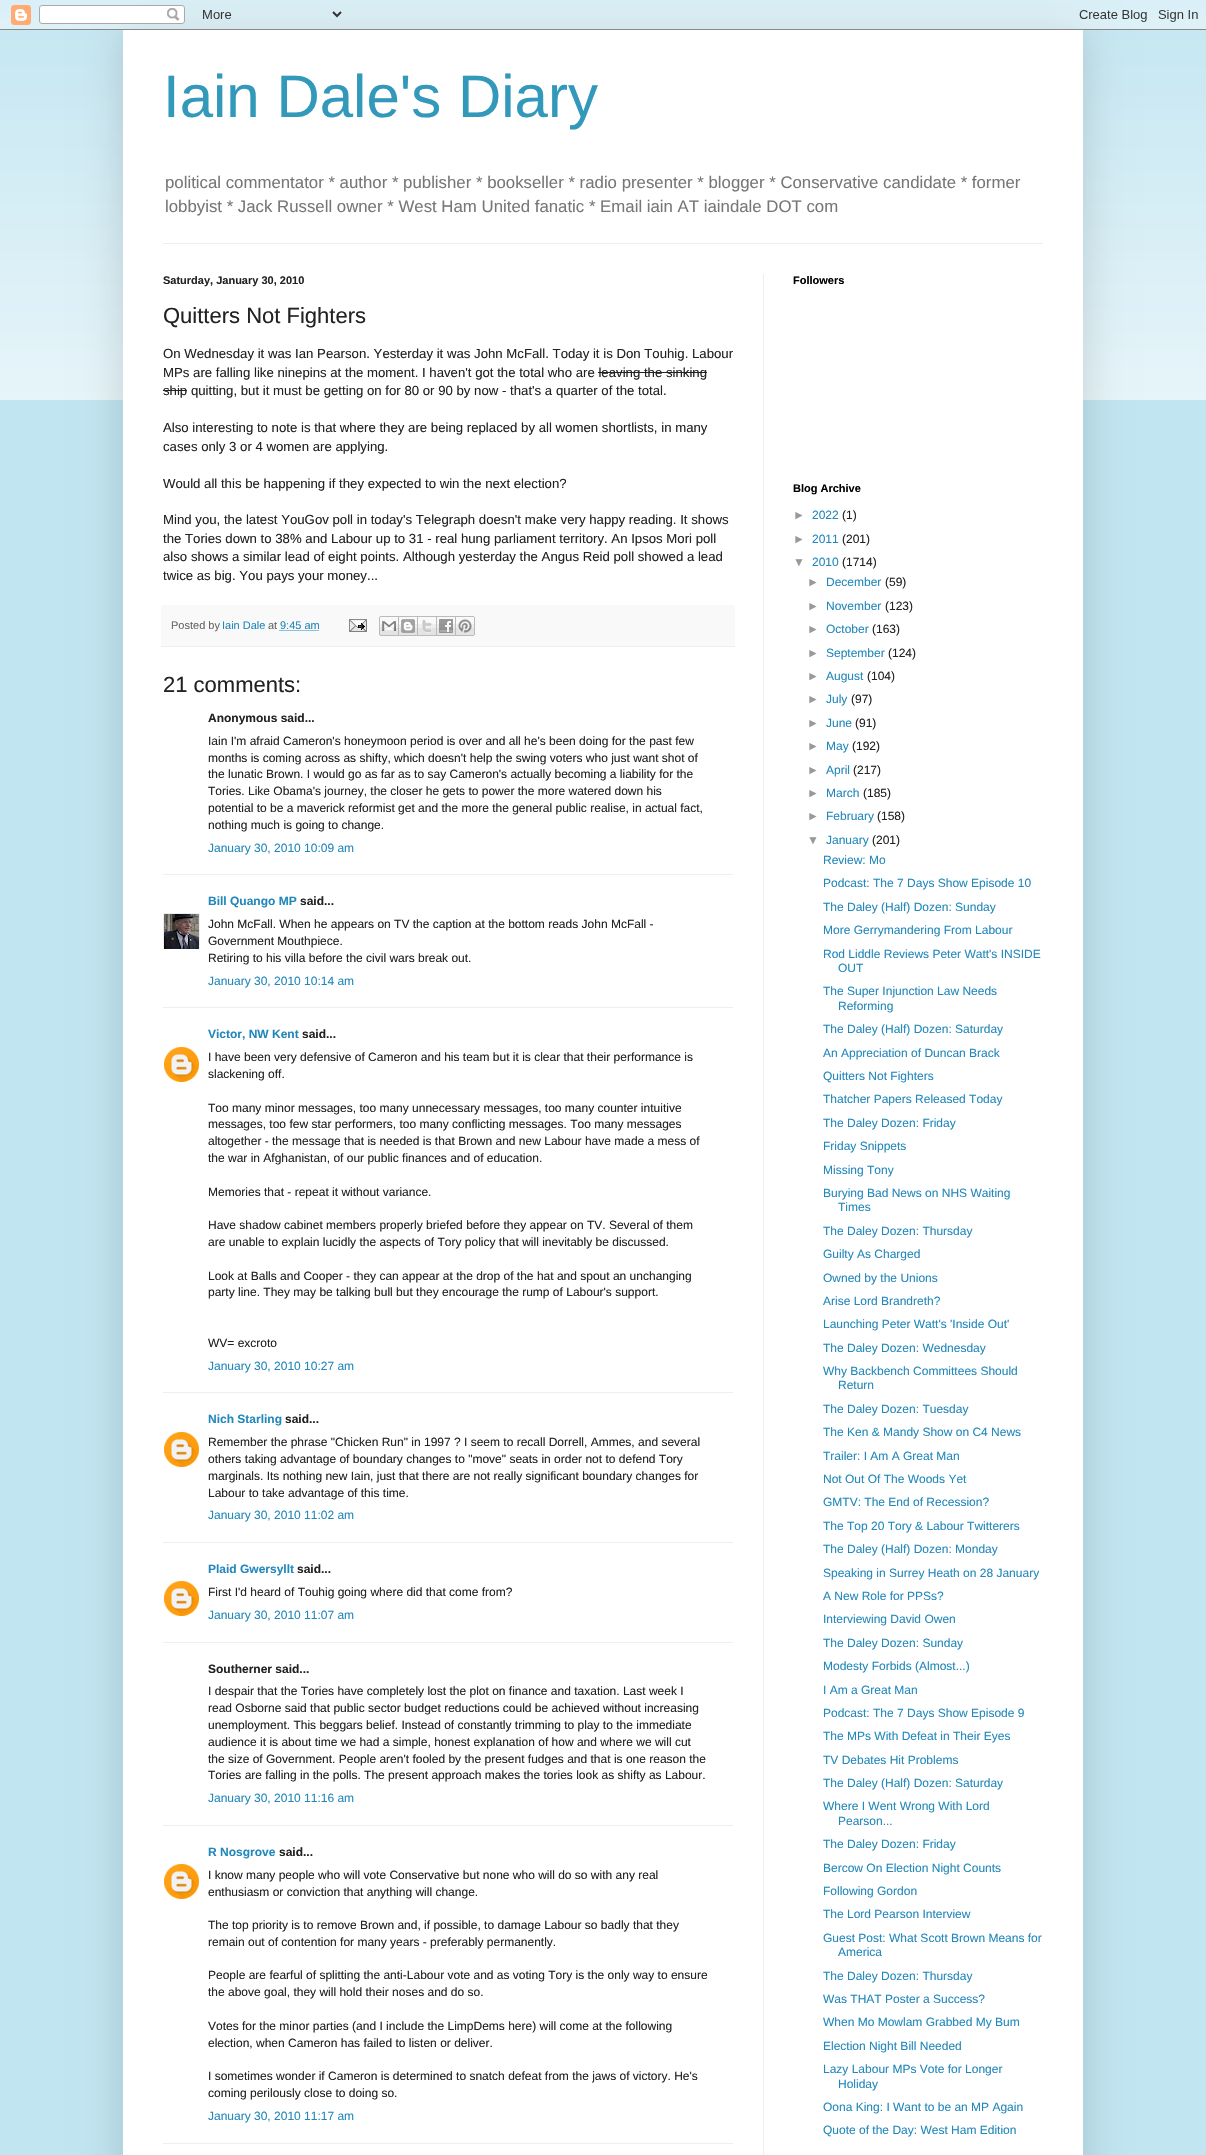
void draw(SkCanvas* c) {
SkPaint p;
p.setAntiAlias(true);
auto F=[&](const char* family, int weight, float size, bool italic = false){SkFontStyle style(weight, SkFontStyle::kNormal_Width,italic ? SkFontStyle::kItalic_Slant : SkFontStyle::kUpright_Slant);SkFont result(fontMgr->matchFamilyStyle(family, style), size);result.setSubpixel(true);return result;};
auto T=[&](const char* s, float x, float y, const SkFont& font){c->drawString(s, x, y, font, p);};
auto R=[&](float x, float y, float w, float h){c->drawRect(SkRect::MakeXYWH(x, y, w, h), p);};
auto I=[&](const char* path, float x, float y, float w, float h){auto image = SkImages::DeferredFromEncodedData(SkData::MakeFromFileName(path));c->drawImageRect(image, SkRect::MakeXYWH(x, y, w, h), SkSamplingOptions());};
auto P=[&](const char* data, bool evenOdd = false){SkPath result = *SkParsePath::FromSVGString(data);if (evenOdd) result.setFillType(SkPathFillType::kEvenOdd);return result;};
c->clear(0xffc1e5f1);
I("2.png",0,10,1206,390);
p.setColor(0x26000000);
p.setMaskFilter(SkMaskFilter::MakeBlur(kNormal_SkBlurStyle, 20));
c->drawRect(SkRect::MakeXYWH(123,30,960,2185),p);
p.setMaskFilter(nullptr);
I("1.png",0,0,1206,30);
p.setColor(0xffffffff);
R(123,30,960,2125);
auto f1 = F("Liberation Sans",400,60);
p.setColor(0xff3399bb);
T("Iain Dale's Diary",163,117,f1);
auto f2 = F("Liberation Sans",400,16.8);
p.setColor(0xff777777);
T("political commentator * author * publisher * bookseller * radio presenter * blogger * Conservative candidate * former",165,188,f2);
T("lobbyist * Jack Russell owner * West Ham United fanatic * Email iain AT iaindale DOT com",165,212,f2);
p.setColor(0xffeeeeee);
R(163,243,880,1);
R(763,274,1,1881);
auto f3 = F("Liberation Sans",700,11);
p.setColor(0xff222222);
T("Saturday, January 30, 2010",163,284,f3);
auto f4 = F("Liberation Sans",400,22);
T("Quitters Not Fighters",163,323,f4);
auto f5 = F("Liberation Sans",400,13.2);
T("On Wednesday it was Ian Pearson. Yesterday it was John McFall. Today it is Don Touhig. Labour",163,358,f5);
T("MPs are falling like ninepins at the moment. I haven't got the total who are leaving the sinking",163,377,f5);
T("ship quitting, but it must be getting on for 80 or 90 by now - that's a quarter of the total.",163,395,f5);
R(598,372,109,1);
R(163,390,24,1);
T("Also interesting to note is that where they are being replaced by all women shortlists, in many",163,432,f5);
T("cases only 3 or 4 women are applying.",163,451,f5);
T("Would all this be happening if they expected to win the next election?",163,488,f5);
T("Mind you, the latest YouGov poll in today's Telegraph doesn't make very happy reading. It shows",163,524,f5);
T("the Tories down to 38% and Labour up to 31 - real hung parliament territory. An Ipsos Mori poll",163,543,f5);
T("also shows a similar lead of eight points. Although yesterday the Angus Reid poll showed a lead",163,561,f5);
T("twice as big. You pays your money...",163,580,f5);
p.setColor(0xfff9f9f9);
R(161,605,574,41);
p.setColor(0xffeeeeee);
R(161,646,574,1);
auto f6 = F("Liberation Sans",400,11);
p.setColor(0xff666666);
T("Posted by",171,629,f6);
p.setColor(0xff2288bb);
T("Iain Dale",222,629,f6);
p.setColor(0xff666666);
T("at",268,629,f6);
p.setColor(0xff2288bb);
T("9:45 am",280,629,f6);
p.setStroke(true);
p.setStrokeWidth(1);
p.setPathEffect(SkDashPathEffect::Make({{1,1}}, 0));
c->drawPath(P("M279.5 630.5h39"),p);
p.setPathEffect(nullptr);
I("3.png",349,619,18,13);
I("4.png",379,616,20,20);
I("5.png",399,616,19,20);
I("6.png",418,616,19,20);
I("7.png",437,616,19,20);
I("8.png",456,616,19,20);
p.setStroke(false);
p.setColor(0xff222222);
T("21 comments:",163,692,f4);
auto f7 = F("Liberation Sans",700,12);
T("Anonymous said...",208,722,f7);
auto f8 = F("Liberation Sans",400,12);
T("Iain I'm afraid Cameron's honeymoon period is over and all he's been doing for the past few",208,745,f8);
T("months is coming across as shifty, which doesn't help the swing voters who just want shot of",208,762,f8);
T("the lunatic Brown. I would go as far as to say Cameron's actually becoming a liability for the",208,778,f8);
T("Tories. Like Obama's journey, the closer he gets to power the more watered down his",208,795,f8);
T("potential to be a maverick reformist get and the more the general public realise, in actual fact,",208,812,f8);
T("nothing much is going to change.",208,829,f8);
p.setColor(0xff2288bb);
T("January 30, 2010 10:09 am",208,852,f8);
p.setColor(0xffeeeeee);
R(163,874,570,1);
p.setColor(0xff2288bb);
T("Bill Quango MP",208,905,f7);
p.setColor(0xff222222);
T("said...",300,905,f7);
c->save();
c->clipRect(SkRect::MakeXYWH(163,913,37,36));
p.setStroke(true);
p.setColor(0xffeeeeee);
c->drawRect(SkRect::MakeXYWH(163.5,913.5,36,36),p);
c->restore();
I("9.png",164,914,35,35);
p.setStroke(false);
p.setColor(0xff222222);
T("John McFall. When he appears on TV the caption at the bottom reads John McFall -",208,928,f8);
T("Government Mouthpiece.",208,945,f8);
T("Retiring to his villa before the civil wars break out.",208,962,f8);
p.setColor(0xff2288bb);
T("January 30, 2010 10:14 am",208,985,f8);
p.setColor(0xffeeeeee);
R(163,1007,570,1);
p.setColor(0xff2288bb);
T("Victor, NW Kent",208,1038,f7);
p.setColor(0xff222222);
T("said...",302,1038,f7);
I("10.png",164,1047,35,35);
T("I have been very defensive of Cameron and his team but it is clear that their performance is",208,1061,f8);
T("slackening off.",208,1078,f8);
T("Too many minor messages, too many unnecessary messages, too many counter intuitive",208,1112,f8);
T("messages, too few star performers, too many conflicting messages. Too many messages",208,1128,f8);
T("altogether - the message that is needed is that Brown and new Labour have made a mess of",208,1145,f8);
T("the war in Afghanistan, of our public finances and of education.",208,1162,f8);
T("Memories that - repeat it without variance.",208,1196,f8);
T("Have shadow cabinet members properly briefed before they appear on TV. Several of them",208,1229,f8);
T("are unable to explain lucidly the aspects of Tory policy that will inevitably be discussed.",208,1246,f8);
T("Look at Balls and Cooper - they can appear at the drop of the hat and spout an unchanging",208,1280,f8);
T("party line. They may be talking bull but they encourage the rump of Labour's support.",208,1296,f8);
T("WV= excroto",208,1347,f8);
p.setColor(0xff2288bb);
T("January 30, 2010 10:27 am",208,1370,f8);
p.setColor(0xffeeeeee);
R(163,1392,570,1);
p.setColor(0xff2288bb);
T("Nich Starling",208,1423,f7);
p.setColor(0xff222222);
T("said...",285,1423,f7);
I("10.png",164,1432,35,35);
T("Remember the phrase \"Chicken Run\" in 1997 ? I seem to recall Dorrell, Ammes, and several",208,1446,f8);
T("others taking advantage of boundary changes to \"move\" seats in order not to defend Tory",208,1463,f8);
T("marginals. Its nothing new Iain, just that there are not really significant boundary changes for",208,1480,f8);
T("Labour to take advantage of this time.",208,1497,f8);
p.setColor(0xff2288bb);
T("January 30, 2010 11:02 am",208,1519,f8);
p.setColor(0xffeeeeee);
R(163,1542,570,1);
p.setColor(0xff2288bb);
T("Plaid Gwersyllt",208,1573,f7);
p.setColor(0xff222222);
T("said...",297,1573,f7);
I("10.png",164,1581,35,35);
T("First I'd heard of Touhig going where did that come from?",208,1596,f8);
p.setColor(0xff2288bb);
T("January 30, 2010 11:07 am",208,1619,f8);
p.setColor(0xffeeeeee);
R(163,1642,570,1);
p.setColor(0xff222222);
T("Southerner said...",208,1673,f7);
T("I despair that the Tories have completely lost the plot on finance and taxation. Last week I",208,1695,f8);
T("read Osborne said that public sector budget reductions could be achieved without increasing",208,1712,f8);
T("unemployment. This beggars belief. Instead of constantly trimming to play to the immediate",208,1729,f8);
T("audience it is about time we had a simple, honest explanation of how and where we will cut",208,1746,f8);
T("the size of Government. People aren't fooled by the present fudges and that is one reason the",208,1763,f8);
T("Tories are falling in the polls. The present approach makes the tories look as shifty as Labour.",208,1779,f8);
p.setColor(0xff2288bb);
T("January 30, 2010 11:16 am",208,1802,f8);
p.setColor(0xffeeeeee);
R(163,1825,570,1);
p.setColor(0xff2288bb);
T("R Nosgrove",208,1856,f7);
p.setColor(0xff222222);
T("said...",279,1856,f7);
I("10.png",164,1864,35,35);
T("I know many people who will vote Conservative but none who will do so with any real",208,1879,f8);
T("enthusiasm or conviction that anything will change.",208,1896,f8);
T("The top priority is to remove Brown and, if possible, to damage Labour so badly that they",208,1929,f8);
T("remain out of contention for many years - preferably permanently.",208,1946,f8);
T("People are fearful of splitting the anti-Labour vote and as voting Tory is the only way to ensure",208,1979,f8);
T("the above goal, they will hold their noses and do so.",208,1996,f8);
T("Votes for the minor parties (and I include the LimpDems here) will come at the following",208,2030,f8);
T("election, when Cameron has failed to listen or deliver.",208,2047,f8);
T("I sometimes wonder if Cameron is determined to snatch defeat from the jaws of victory. He's",208,2080,f8);
T("coming perilously close to doing so.",208,2097,f8);
p.setColor(0xff2288bb);
T("January 30, 2010 11:17 am",208,2120,f8);
p.setColor(0xffeeeeee);
R(163,2143,570,1);
p.setColor(0xff000000);
T("Followers",793,284,f3);
T("Blog Archive",793,492,f3);
p.setColor(0xff999999);
T("►",793,519,f8);
p.setColor(0xff2288bb);
T("2022",812,519,f8);
p.setColor(0xff222222);
T("(1)",842,519,f8);
p.setColor(0xff999999);
T("►",793,543,f8);
p.setColor(0xff2288bb);
T("2011",812,543,f8);
p.setColor(0xff222222);
T("(201)",842,543,f8);
p.setColor(0xff999999);
T("▼",793,566,f8);
p.setColor(0xff2288bb);
T("2010",812,566,f8);
p.setColor(0xff222222);
T("(1714)",842,566,f8);
p.setColor(0xff999999);
T("►",807,586,f8);
p.setColor(0xff2288bb);
T("December",826,586,f8);
p.setColor(0xff222222);
T("(59)",885,586,f8);
p.setColor(0xff999999);
T("►",807,610,f8);
p.setColor(0xff2288bb);
T("November",826,610,f8);
p.setColor(0xff222222);
T("(123)",885,610,f8);
p.setColor(0xff999999);
T("►",807,633,f8);
p.setColor(0xff2288bb);
T("October",826,633,f8);
p.setColor(0xff222222);
T("(163)",872,633,f8);
p.setColor(0xff999999);
T("►",807,657,f8);
p.setColor(0xff2288bb);
T("September",826,657,f8);
p.setColor(0xff222222);
T("(124)",888,657,f8);
p.setColor(0xff999999);
T("►",807,680,f8);
p.setColor(0xff2288bb);
T("August",826,680,f8);
p.setColor(0xff222222);
T("(104)",867,680,f8);
p.setColor(0xff999999);
T("►",807,703,f8);
p.setColor(0xff2288bb);
T("July",826,703,f8);
p.setColor(0xff222222);
T("(97)",851,703,f8);
p.setColor(0xff999999);
T("►",807,727,f8);
p.setColor(0xff2288bb);
T("June",826,727,f8);
p.setColor(0xff222222);
T("(91)",855,727,f8);
p.setColor(0xff999999);
T("►",807,750,f8);
p.setColor(0xff2288bb);
T("May",826,750,f8);
p.setColor(0xff222222);
T("(192)",852,750,f8);
p.setColor(0xff999999);
T("►",807,774,f8);
p.setColor(0xff2288bb);
T("April",826,774,f8);
p.setColor(0xff222222);
T("(217)",853,774,f8);
p.setColor(0xff999999);
T("►",807,797,f8);
p.setColor(0xff2288bb);
T("March",826,797,f8);
p.setColor(0xff222222);
T("(185)",863,797,f8);
p.setColor(0xff999999);
T("►",807,820,f8);
p.setColor(0xff2288bb);
T("February",826,820,f8);
p.setColor(0xff222222);
T("(158)",877,820,f8);
p.setColor(0xff999999);
T("▼",807,844,f8);
p.setColor(0xff2288bb);
T("January",826,844,f8);
p.setColor(0xff222222);
T("(201)",872,844,f8);
p.setColor(0xff2288bb);
T("Review: Mo",823,864,f8);
T("Podcast: The 7 Days Show Episode 10",823,887,f8);
T("The Daley (Half) Dozen: Sunday",823,911,f8);
T("More Gerrymandering From Labour",823,934,f8);
T("Rod Liddle Reviews Peter Watt's INSIDE",823,958,f8);
T("OUT",838,972,f8);
T("The Super Injunction Law Needs",823,995,f8);
T("Reforming",838,1010,f8);
T("The Daley (Half) Dozen: Saturday",823,1033,f8);
T("An Appreciation of Duncan Brack",823,1057,f8);
T("Quitters Not Fighters",823,1080,f8);
T("Thatcher Papers Released Today",823,1103,f8);
T("The Daley Dozen: Friday",823,1127,f8);
T("Friday Snippets",823,1150,f8);
T("Missing Tony",823,1174,f8);
T("Burying Bad News on NHS Waiting",823,1197,f8);
T("Times",838,1211,f8);
T("The Daley Dozen: Thursday",823,1235,f8);
T("Guilty As Charged",823,1258,f8);
T("Owned by the Unions",823,1282,f8);
T("Arise Lord Brandreth?",823,1305,f8);
T("Launching Peter Watt's 'Inside Out'",823,1328,f8);
T("The Daley Dozen: Wednesday",823,1352,f8);
T("Why Backbench Committees Should",823,1375,f8);
T("Return",838,1389,f8);
T("The Daley Dozen: Tuesday",823,1413,f8);
T("The Ken & Mandy Show on C4 News",823,1436,f8);
T("Trailer: I Am A Great Man",823,1460,f8);
T("Not Out Of The Woods Yet",823,1483,f8);
T("GMTV: The End of Recession?",823,1506,f8);
T("The Top 20 Tory & Labour Twitterers",823,1530,f8);
T("The Daley (Half) Dozen: Monday",823,1553,f8);
T("Speaking in Surrey Heath on 28 January",823,1577,f8);
T("A New Role for PPSs?",823,1600,f8);
T("Interviewing David Owen",823,1623,f8);
T("The Daley Dozen: Sunday",823,1647,f8);
T("Modesty Forbids (Almost...)",823,1670,f8);
T("I Am a Great Man",823,1694,f8);
T("Podcast: The 7 Days Show Episode 9",823,1717,f8);
T("The MPs With Defeat in Their Eyes",823,1740,f8);
T("TV Debates Hit Problems",823,1764,f8);
T("The Daley (Half) Dozen: Saturday",823,1787,f8);
T("Where I Went Wrong With Lord",823,1810,f8);
T("Pearson...",838,1825,f8);
T("The Daley Dozen: Friday",823,1848,f8);
T("Bercow On Election Night Counts",823,1872,f8);
T("Following Gordon",823,1895,f8);
T("The Lord Pearson Interview",823,1918,f8);
T("Guest Post: What Scott Brown Means for",823,1942,f8);
T("America",838,1956,f8);
T("The Daley Dozen: Thursday",823,1980,f8);
T("Was THAT Poster a Success?",823,2003,f8);
T("When Mo Mowlam Grabbed My Bum",823,2026,f8);
T("Election Night Bill Needed",823,2050,f8);
T("Lazy Labour MPs Vote for Longer",823,2073,f8);
T("Holiday",838,2088,f8);
T("Oona King: I Want to be an MP Again",823,2111,f8);
T("Quote of the Day: West Ham Edition",823,2134,f8);
}
